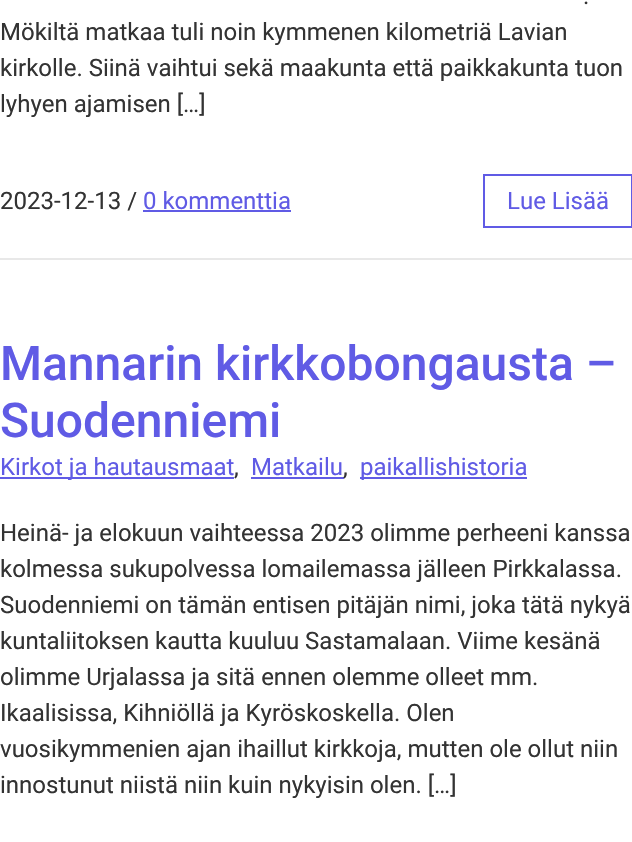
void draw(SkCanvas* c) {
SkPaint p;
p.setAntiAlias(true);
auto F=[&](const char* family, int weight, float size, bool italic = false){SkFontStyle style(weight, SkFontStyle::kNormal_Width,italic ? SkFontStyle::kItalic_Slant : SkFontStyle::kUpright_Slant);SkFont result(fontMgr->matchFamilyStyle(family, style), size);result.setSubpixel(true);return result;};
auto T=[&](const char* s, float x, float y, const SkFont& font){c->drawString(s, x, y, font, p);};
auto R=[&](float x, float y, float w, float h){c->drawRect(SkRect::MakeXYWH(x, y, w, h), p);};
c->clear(0xffffffff);
auto f1 = F("Roboto",400,24);
p.setColor(0xff333333);
T(".",583,4,f1);
T("Mökiltä matkaa tuli noin kymmenen kilometriä Lavian",0,40,f1);
T("kirkolle. Siinä vaihtui sekä maakunta että paikkakunta tuon",0,76,f1);
T("lyhyen ajamisen […]",0,112,f1);
p.setColor(0xffe8e8e8);
R(0,258,632,2);
p.setColor(0xff333333);
T("2023-12-13 /",0,209,f1);
p.setColor(0xff605be5);
T("0 kommenttia",143,209,f1);
R(143,210,148,2);
p.setStroke(true);
p.setStrokeWidth(2);
c->drawRect(SkRect::MakeXYWH(484,175,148,52),p);
p.setStroke(false);
T("Lue Lisää",507,209,f1);
auto f2 = F("Roboto",500,48);
T("Mannarin kirkkobongausta –",0,380,f2);
T("Suodenniemi",0,437,f2);
R(0,477,234,2);
T("Kirkot ja hautausmaat",0,475,f1);
p.setColor(0xff333333);
T(",",234,475,f1);
p.setColor(0xff605be5);
T("Matkailu",251,475,f1);
R(251,477,93,2);
p.setColor(0xff333333);
T(",",343,475,f1);
p.setColor(0xff605be5);
R(360,477,167,2);
T("paikallishistoria",360,475,f1);
p.setColor(0xff333333);
T("Heinä- ja elokuun vaihteessa 2023 olimme perheeni kanssa",0,541,f1);
T("kolmessa sukupolvessa lomailemassa jälleen Pirkkalassa.",0,577,f1);
T("Suodenniemi on tämän entisen pitäjän nimi, joka tätä nykyä",0,613,f1);
T("kuntaliitoksen kautta kuuluu Sastamalaan. Viime kesänä",0,649,f1);
T("olimme Urjalassa ja sitä ennen olemme olleet mm.",0,685,f1);
T("Ikaalisissa, Kihniöllä ja Kyröskoskella. Olen",0,721,f1);
T("vuosikymmenien ajan ihaillut kirkkoja, mutten ole ollut niin",0,757,f1);
T("innostunut niistä niin kuin nykyisin olen. […]",0,793,f1);
}
